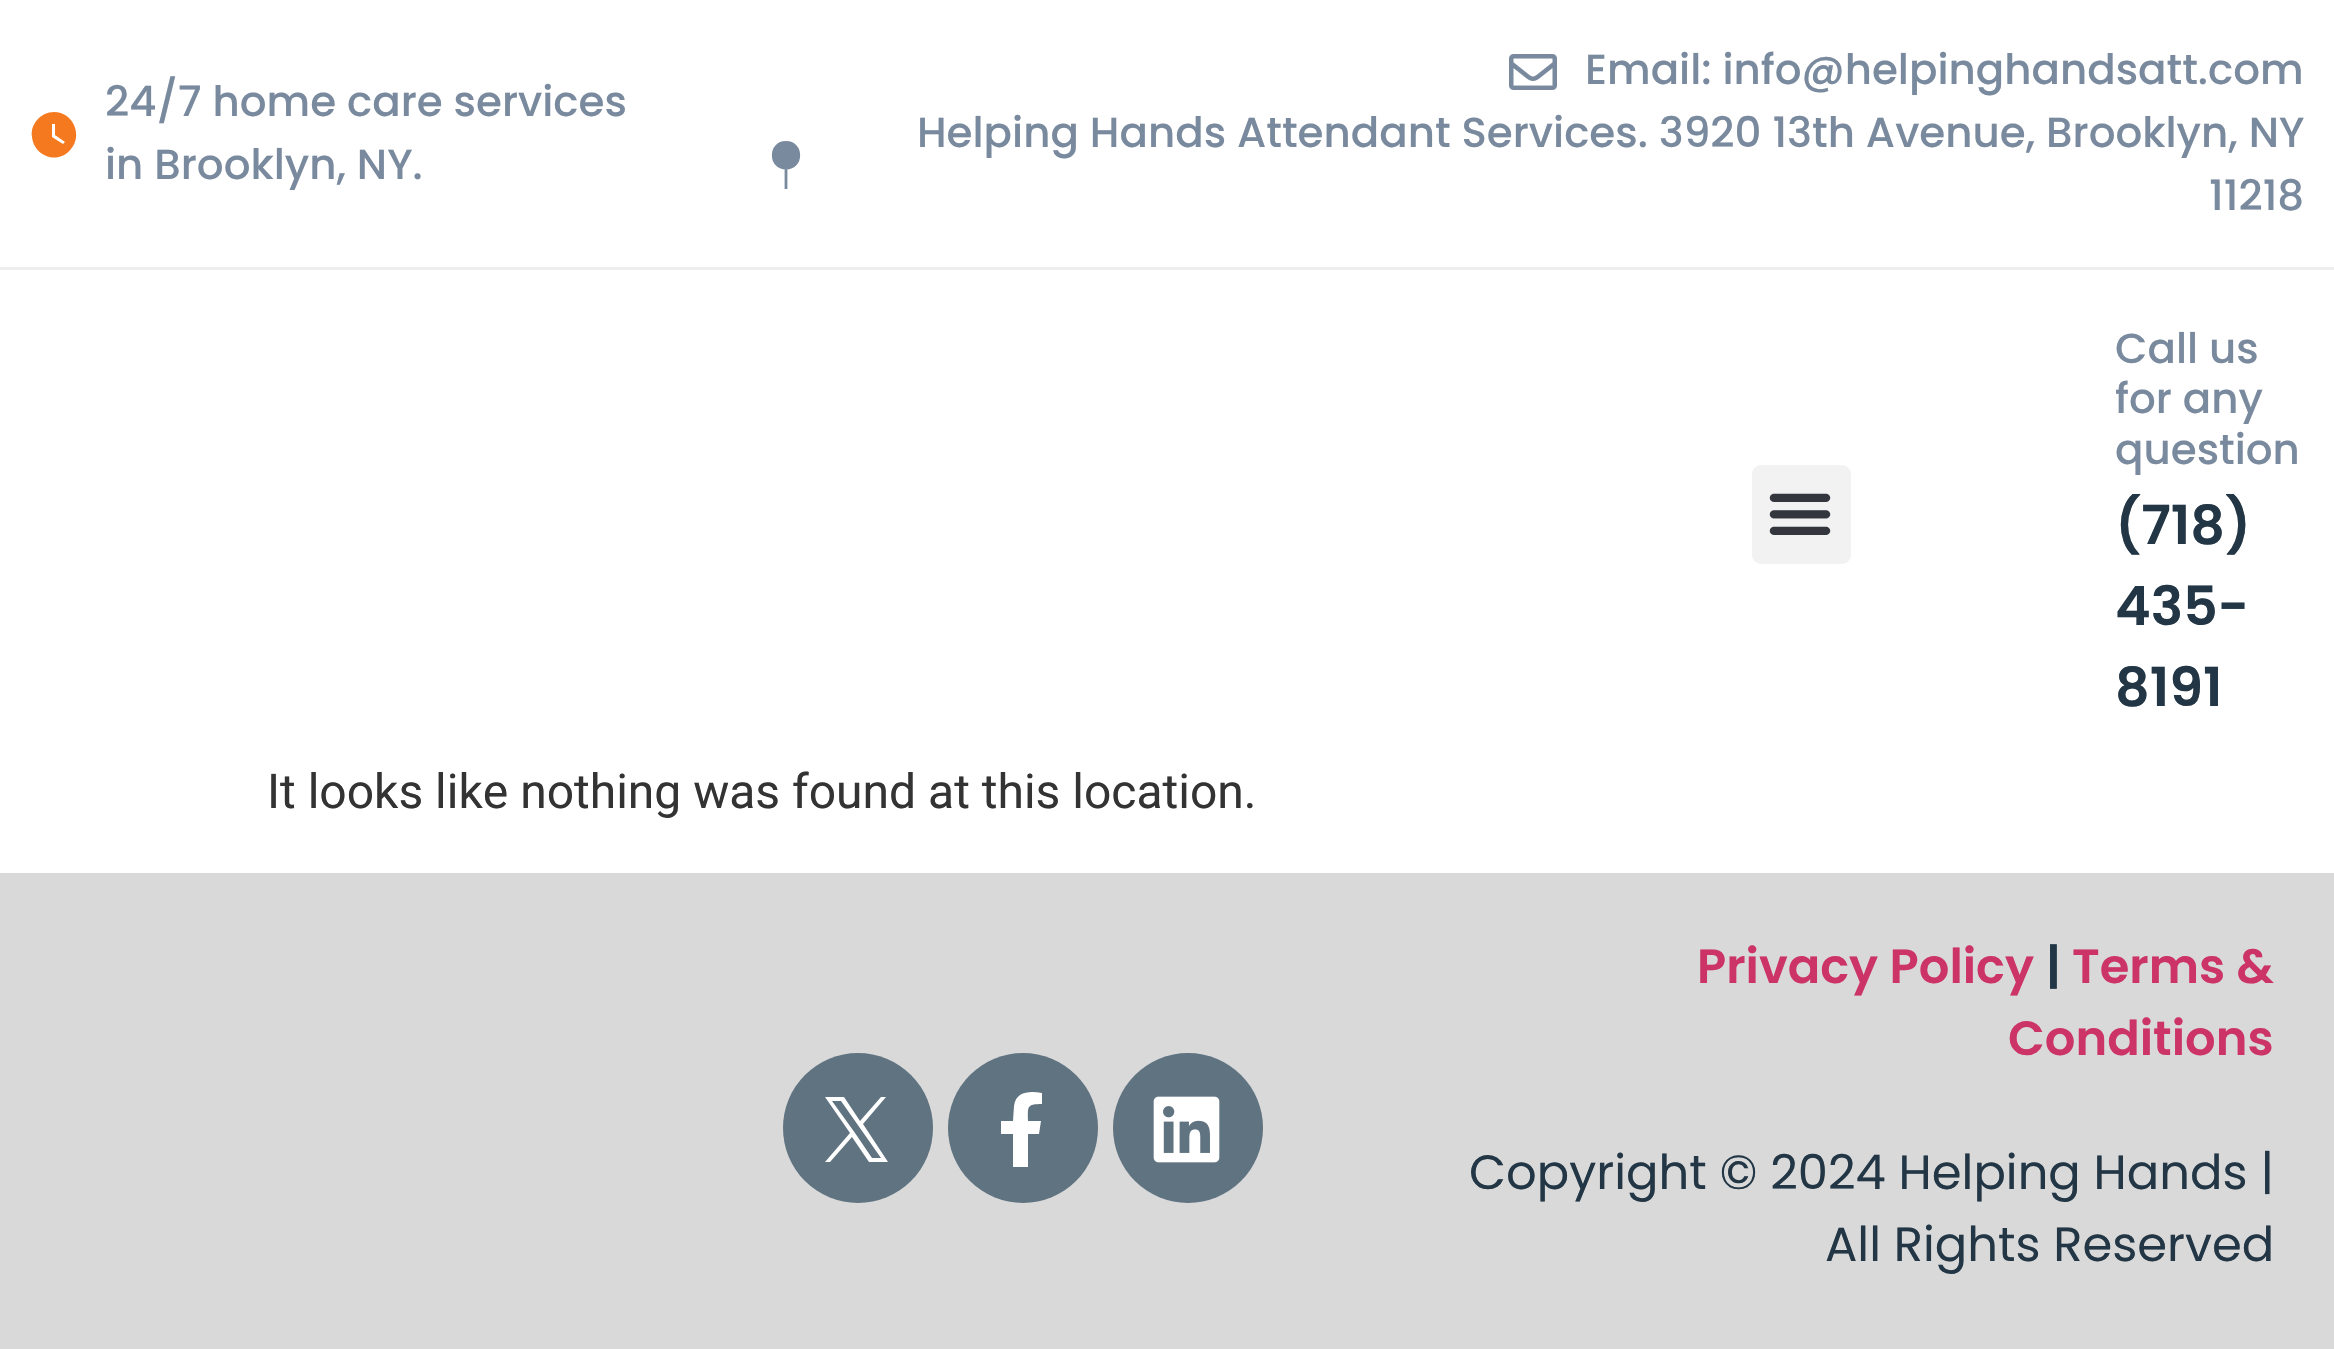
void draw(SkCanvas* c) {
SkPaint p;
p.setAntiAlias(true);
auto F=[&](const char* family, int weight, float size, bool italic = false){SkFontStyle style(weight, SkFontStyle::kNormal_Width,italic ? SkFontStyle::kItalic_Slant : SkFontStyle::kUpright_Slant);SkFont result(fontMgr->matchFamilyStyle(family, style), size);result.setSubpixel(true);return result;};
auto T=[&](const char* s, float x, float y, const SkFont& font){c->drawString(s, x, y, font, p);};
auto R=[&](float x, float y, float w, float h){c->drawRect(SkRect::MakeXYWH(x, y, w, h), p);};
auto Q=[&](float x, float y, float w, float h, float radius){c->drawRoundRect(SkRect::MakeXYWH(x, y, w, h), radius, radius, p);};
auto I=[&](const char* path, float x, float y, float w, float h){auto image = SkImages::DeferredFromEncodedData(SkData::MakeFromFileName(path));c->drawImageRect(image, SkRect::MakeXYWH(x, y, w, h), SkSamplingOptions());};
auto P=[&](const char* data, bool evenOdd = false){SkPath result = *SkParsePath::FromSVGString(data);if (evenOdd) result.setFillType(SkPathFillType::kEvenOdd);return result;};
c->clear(0xffffffff);
p.setColor(0xffeeeeee);
R(0,267,2334,3);
p.setColor(0xfff57a1f);
c->drawPath(P("M54 112c-13 0-24 12-22 25c2 20 27 28 39 12c12-14 2-37-17-37zm9 32l-11-7v-13h3v11l10 7z"),p);
auto f1 = F("Poppins",500,42);
p.setColor(0xff7a8a9e);
T("24/7 home care services",105,116,f1);
T("in Brooklyn, NY.",105,179,f1);
I("1.png",1509,54,48,36);
T("Email: info@helpinghandsatt.com",1585,84,f1);
c->drawPath(P("M786 189v-21m0 0c17 0 17-25 0-25c-17 0-17 25 0 25z"),p);
p.setStroke(true);
p.setStrokeWidth(2.8);
c->drawPath(P("M786 189v-21m0 0c17 0 17-25.5 0-25.5c-17 0-17 25.5 0 25.5z"),p);
p.setStroke(false);
T("Helping Hands Attendant Services. 3920 13th Avenue, Brooklyn, NY",917,147,f1);
T("11218",2209,210,f1);
p.setColor(0xfff2f2f2);
Q(1752,465,99,99,9);
I("2.png",1769,493,62,42);
p.setColor(0xff7a8a9e);
T("Call us",2115,363,f1);
T("for any",2115,413,f1);
T("question",2115,464,f1);
auto f2 = F("Poppins",600,54);
p.setColor(0xff223645);
T("(718)",2115,544,f2);
T("435-",2115,625,f2);
T("8191",2115,706,f2);
auto f3 = F("Roboto",400,48);
p.setColor(0xff333333);
T("It looks like nothing was found at this location.",267,808,f3);
p.setColor(0xffd9d9d9);
R(0,873,2334,476);
p.setColor(0xff607381);
c->drawCircle(858,1128,75,p);
p.setColor(0xffffffff);
c->drawPath(P("M863 1124l23-27h-5l-21 24l-16-24h-19l25 36l-25 29h5l22-25l17 25h19zm-8 9l-23-32h9l40 57h-9z"),p);
p.setColor(0xff607381);
c->drawCircle(1023,1128,75,p);
p.setColor(0xffffffff);
c->drawPath(P("M1039 1134l2-13h-13c0-14-2-17 14-17v-11c-12-2-26-2-28 13l-1 15h-12v13h12v33h15v-33z"),p);
p.setColor(0xff607381);
c->drawCircle(1188,1128,75,p);
I("3.png",1153,1096,67,67);
auto f4 = F("Poppins",600,48);
p.setColor(0xffcc3366);
T("Privacy Policy",1697,983,f4);
p.setColor(0xff223645);
T("|",2046,983,f4);
p.setColor(0xffcc3366);
T("Terms &",2072,983,f4);
T("Conditions",2008,1055,f4);
auto f5 = F("Poppins",400,48);
p.setColor(0xff223645);
T("Copyright © 2024 Helping Hands |",1469,1189,f5);
T("All Rights Reserved",1825,1261,f5);
}
